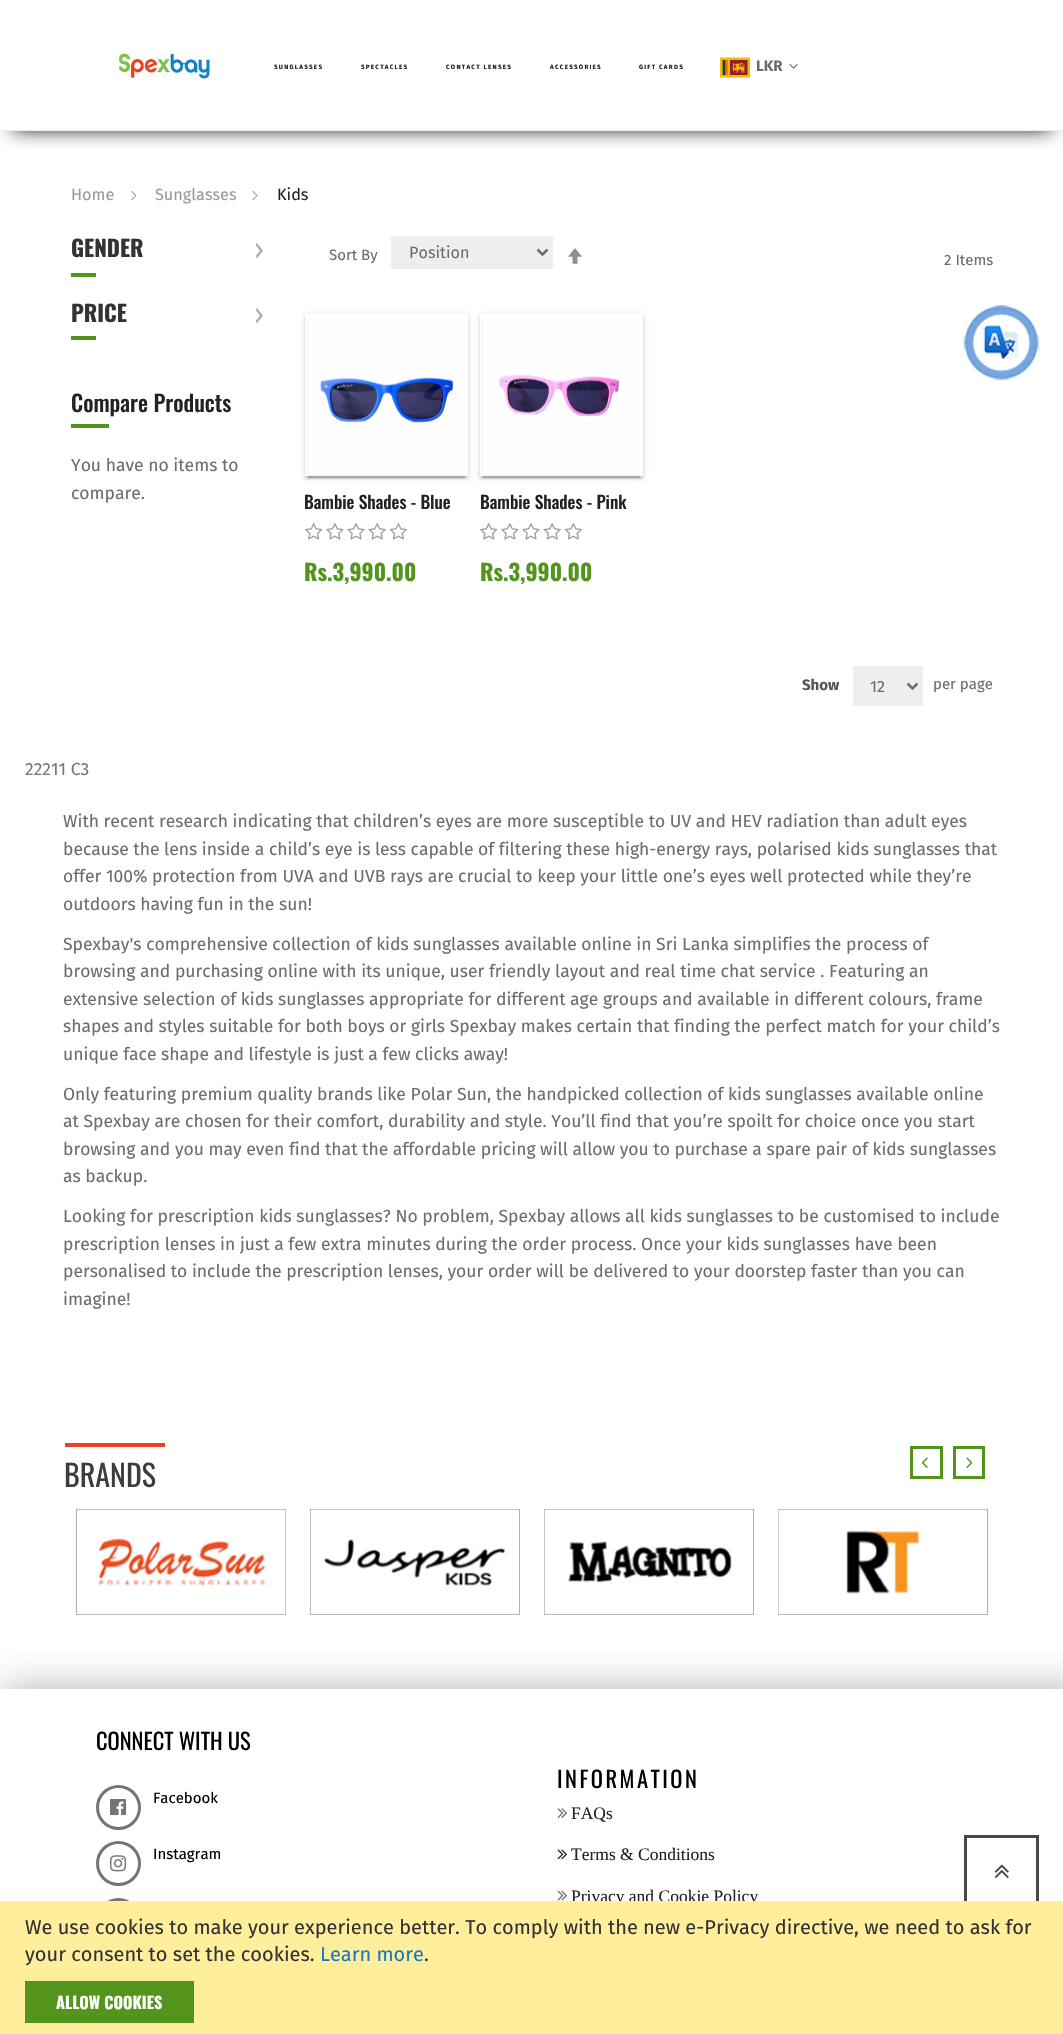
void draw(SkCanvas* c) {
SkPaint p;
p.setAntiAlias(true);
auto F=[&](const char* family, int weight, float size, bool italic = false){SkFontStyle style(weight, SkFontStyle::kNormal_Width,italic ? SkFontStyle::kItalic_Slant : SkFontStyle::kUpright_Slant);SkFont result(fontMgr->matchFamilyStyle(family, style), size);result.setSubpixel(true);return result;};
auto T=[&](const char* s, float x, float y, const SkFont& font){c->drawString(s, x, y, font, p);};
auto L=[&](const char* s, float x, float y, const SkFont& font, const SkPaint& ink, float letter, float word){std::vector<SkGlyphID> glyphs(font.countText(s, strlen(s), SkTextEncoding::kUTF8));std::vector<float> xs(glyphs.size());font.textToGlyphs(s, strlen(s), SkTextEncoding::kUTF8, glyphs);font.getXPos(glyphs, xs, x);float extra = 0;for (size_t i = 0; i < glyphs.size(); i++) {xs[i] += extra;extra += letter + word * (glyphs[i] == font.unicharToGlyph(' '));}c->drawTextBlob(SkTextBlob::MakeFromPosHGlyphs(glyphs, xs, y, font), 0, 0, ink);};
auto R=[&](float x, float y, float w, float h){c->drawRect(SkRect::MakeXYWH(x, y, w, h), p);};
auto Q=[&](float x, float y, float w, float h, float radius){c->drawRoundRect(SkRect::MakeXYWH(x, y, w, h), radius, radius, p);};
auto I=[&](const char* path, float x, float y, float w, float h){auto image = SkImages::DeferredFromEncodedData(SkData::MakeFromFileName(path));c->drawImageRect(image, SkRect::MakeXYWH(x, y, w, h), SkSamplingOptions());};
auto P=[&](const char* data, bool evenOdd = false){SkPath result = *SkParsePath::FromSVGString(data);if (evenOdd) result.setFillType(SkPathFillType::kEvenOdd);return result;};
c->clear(0xffffffff);
c->save();
c->clipRect(SkRect::MakeXYWH(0,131,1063,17));
p.setColor(0xff000000);
p.setMaskFilter(SkMaskFilter::MakeBlur(kNormal_SkBlurStyle, 9.5));
c->drawRect(SkRect::MakeXYWH(13,23,1038,106),p);
p.setMaskFilter(nullptr);
c->restore();
p.setColor(0xffeeeeee);
R(0,130,1063,1);
I("1.png",119,53,91,26);
auto f1 = F("Fira Sans",700,6.25);
p.setColor(0xff222222);
L("SUNGLASSES",274,69,f1,p,1.25,0);
L("SPECTACLES",361,69,f1,p,1.25,0);
L("CONTACT LENSES",446,69,f1,p,1.25,0);
L("ACCESSORIES",550,69,f1,p,1.25,0);
L("GIFT CARDS",639,69,f1,p,1.25,0);
I("2.png",720,57,30,21);
auto f2 = F("Fira Sans",700,15);
p.setColor(0xff6d6d6d);
T("LKR",756,71,f2);
I("3.png",789,63,9,6);
auto f3 = F("Fira Sans",400,16.25);
p.setColor(0xff999999);
T("Home",71,200,f3);
I("4.png",131,191,6,10);
T("Sunglasses",155,200,f3);
I("5.png",252,191,6,10);
p.setColor(0xff222222);
T("Kids",277,200,f3);
auto f4 = F("Oswald",700,22.5);
p.setColor(0xff333333);
T("GENDER",71,257,f4);
I("6.png",256,242,7,17);
p.setColor(0xff52941c);
R(71,273,25,4);
p.setColor(0xff333333);
T("PRICE",71,322,f4);
I("6.png",256,307,7,17);
p.setColor(0xff52941c);
R(71,336,25,4);
auto f5 = F("Oswald",500,22.5);
p.setColor(0xff222222);
T("Compare Products",71,412,f5);
p.setColor(0xff52941c);
R(71,424,38,4);
auto f6 = F("Fira Sans",400,17.5);
p.setColor(0xff6d6d6d);
T("You have no items to",71,471,f6);
T("compare.",71,499,f6);
auto f7 = F("Fira Sans",400,15);
T("Sort By",329,260,f7);
p.setColor(0xffeeeeee);
Q(391,236,162,33,1);
p.setStroke(true);
p.setStrokeWidth(2.5);
p.setColor(0xff6d6d6d);
c->drawPath(P("M537.5 249.5l5 5l5-5"),p);
p.setStroke(false);
T("Position",409,258,f3);
I("7.png",568,248,14,16);
T("2 Items",944,265,f7);
p.setColor(0x33000000);
p.setMaskFilter(SkMaskFilter::MakeBlur(kNormal_SkBlurStyle, .5));
c->drawRect(SkRect::MakeXYWH(308,320,157,158),p);
p.setMaskFilter(nullptr);
c->save();
c->clipPath(P("M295 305h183v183h-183zm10 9h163v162h-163z",true),true);
p.setColor(0x1f000000);
p.setMaskFilter(SkMaskFilter::MakeBlur(kNormal_SkBlurStyle, 3));
c->drawRect(SkRect::MakeXYWH(305,315,163,163),p);
p.setMaskFilter(nullptr);
c->restore();
c->save();
c->clipPath(P("M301 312h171v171h-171zm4 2h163v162h-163z",true),true);
p.setColor(0x24000000);
p.setMaskFilter(SkMaskFilter::MakeBlur(kNormal_SkBlurStyle, 1));
c->drawRect(SkRect::MakeXYWH(305,316,163,163),p);
p.setMaskFilter(nullptr);
c->restore();
c->save();
c->clipRect(SkRect::MakeXYWH(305,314,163,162));
c->clipPath(P("M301 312h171v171h-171zm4 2h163v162h-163z",true),true);
p.setMaskFilter(SkMaskFilter::MakeBlur(kNormal_SkBlurStyle, 1));
c->drawRect(SkRect::MakeXYWH(305,316,163,163),p);
p.setMaskFilter(nullptr);
c->restore();
I("8.png",308,317,160,160);
auto f8 = F("Oswald",500,17.5);
p.setColor(0xff222222);
T("Bambie Shades - Blue",304,509,f8);
I("9.png",305,523,102,17);
p.setColor(0xff52941c);
T("Rs.3,990.00",304,581,f4);
p.setColor(0x33000000);
p.setMaskFilter(SkMaskFilter::MakeBlur(kNormal_SkBlurStyle, .5));
c->drawRect(SkRect::MakeXYWH(483,320,157,158),p);
p.setMaskFilter(nullptr);
c->save();
c->clipPath(P("M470 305h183v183h-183zm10 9h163v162h-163z",true),true);
p.setColor(0x1f000000);
p.setMaskFilter(SkMaskFilter::MakeBlur(kNormal_SkBlurStyle, 3));
c->drawRect(SkRect::MakeXYWH(480,315,163,163),p);
p.setMaskFilter(nullptr);
c->restore();
c->save();
c->clipPath(P("M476 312h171v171h-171zm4 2h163v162h-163z",true),true);
p.setColor(0x24000000);
p.setMaskFilter(SkMaskFilter::MakeBlur(kNormal_SkBlurStyle, 1));
c->drawRect(SkRect::MakeXYWH(480,316,163,163),p);
p.setMaskFilter(nullptr);
c->restore();
c->save();
c->clipRect(SkRect::MakeXYWH(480,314,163,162));
c->clipPath(P("M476 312h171v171h-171zm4 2h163v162h-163z",true),true);
p.setMaskFilter(SkMaskFilter::MakeBlur(kNormal_SkBlurStyle, 1));
c->drawRect(SkRect::MakeXYWH(480,316,163,163),p);
p.setMaskFilter(nullptr);
c->restore();
I("10.png",483,317,160,160);
p.setColor(0xff222222);
T("Bambie Shades - Pink",480,509,f8);
I("9.png",480,523,102,17);
p.setColor(0xff52941c);
T("Rs.3,990.00",480,581,f4);
p.setColor(0xff555555);
T("Show",802,690,f2);
p.setColor(0xffeeeeee);
Q(853,666,70,40,1);
p.setStroke(true);
p.setColor(0xff6d6d6d);
c->drawPath(P("M907.5 683.5l5 5l5-5"),p);
p.setStroke(false);
T("12",870,692,f3);
T("per page",933,689,f7);
I("11.png",963,305,76,76);
p.setColor(0xff777777);
T("22211 C3",25,775,f6);
p.setColor(0xff6d6d6d);
T("With recent research indicating that children’s eyes are more susceptible to UV and HEV radiation than adult eyes",63,827,f6);
T("because the lens inside a child’s eye is less capable of filtering these high-energy rays, polarised kids sunglasses that",63,855,f6);
T("offer 100% protection from UVA and UVB rays are crucial to keep your little one’s eyes well protected while they’re",63,882,f6);
T("outdoors having fun in the sun!",63,910,f6);
T("Spexbay's comprehensive collection of kids sunglasses available online in Sri Lanka simplifies the process of",63,950,f6);
T("browsing and purchasing online with its unique, user friendly layout and real time chat service . Featuring an",63,977,f6);
T("extensive selection of kids sunglasses appropriate for different age groups and available in different colours, frame",63,1005,f6);
T("shapes and styles suitable for both boys or girls Spexbay makes certain that finding the perfect match for your child’s",63,1032,f6);
T("unique face shape and lifestyle is just a few clicks away!",63,1060,f6);
T("Only featuring premium quality brands like Polar Sun, the handpicked collection of kids sunglasses available online",63,1100,f6);
T("at Spexbay are chosen for their comfort, durability and style. You’ll find that you’re spoilt for choice once you start",63,1127,f6);
T("browsing and you may even find that the affordable pricing will allow you to purchase a spare pair of kids sunglasses",63,1155,f6);
T("as backup.",63,1182,f6);
T("Looking for prescription kids sunglasses? No problem, Spexbay allows all kids sunglasses to be customised to include",63,1222,f6);
T("prescription lenses in just a few extra minutes during the order process. Once your kids sunglasses have been",63,1250,f6);
T("personalised to include the prescription lenses, your order will be delivered to your doorstep faster than you can",63,1277,f6);
T("imagine!",63,1305,f6);
p.setStroke(true);
p.setStrokeWidth(3);
p.setColor(0xff52941c);
c->drawRect(SkRect::MakeXYWH(911.5,1447.5,30,30),p);
I("12.png",921,1457,7,11);
c->drawRect(SkRect::MakeXYWH(954.5,1447.5,29,30),p);
I("13.png",966,1457,7,11);
p.setStrokeWidth(1);
p.setColor(0xffb0b1b3);
c->drawRect(SkRect::MakeXYWH(76.5,1509.5,209,105),p);
I("14.png",77,1509,209,106);
c->drawRect(SkRect::MakeXYWH(310.5,1509.5,209,105),p);
I("15.png",310,1509,209,106);
c->drawRect(SkRect::MakeXYWH(544.5,1509.5,209,105),p);
I("16.png",544,1509,209,106);
c->drawRect(SkRect::MakeXYWH(778.5,1509.5,209,105),p);
I("17.png",778,1509,209,106);
p.setStroke(false);
p.setColor(0xffef4023);
R(65,1443,100,4);
auto f9 = F("Oswald",400,30);
p.setColor(0xff3a3d42);
T("BRANDS",64,1487,f9);
c->save();
c->clipRect(SkRect::MakeXYWH(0,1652,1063,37));
p.setColor(0xffa7a7a7);
p.setMaskFilter(SkMaskFilter::MakeBlur(kNormal_SkBlurStyle, 19));
c->drawRect(SkRect::MakeXYWH(5,1691,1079,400),p);
p.setMaskFilter(nullptr);
c->restore();
auto f10 = F("Oswald",400,22.5);
p.setColor(0xff000000);
T("CONNECT WITH US",96,1750,f10);
p.setStroke(true);
p.setStrokeWidth(3);
p.setColor(0xff747474);
c->drawCircle(118.5,1807.5,21,p);
I("18.png",110,1799,17,17);
p.setStroke(false);
p.setColor(0xff000000);
T("Facebook",153,1803,f7);
p.setStroke(true);
p.setColor(0xff747474);
c->drawCircle(118.5,1863.5,21,p);
I("19.png",110,1855,17,17);
p.setStroke(false);
p.setColor(0xff000000);
T("Instagram",153,1859,f7);
p.setStroke(true);
p.setColor(0xff747474);
c->drawCircle(118.5,1920.5,21,p);
p.setStroke(false);
p.setColor(0xff000000);
L("INFORMATION",557,1788,f10,p,2.5,0);
I("20.png",557,1808,10,10);
auto f11 = F("Liberation Serif",400,17.5);
p.setColor(0xff222222);
T("FAQs",571,1819,f11);
I("21.png",557,1849,10,11);
T("Terms & Conditions",571,1860,f11);
I("22.png",557,1890,10,11);
T("Privacy and Cookie Policy",571,1902,f11);
p.setStroke(true);
p.setColor(0xff474747);
c->drawRect(SkRect::MakeXYWH(965.5,1836.5,72,72),p);
I("23.png",994,1864,15,14);
p.setStroke(false);
p.setColor(0xffffee9c);
R(0,1901,1063,133);
auto f12 = F("Fira Sans",400,20);
p.setColor(0xff333333);
T("We use cookies to make your experience better. To comply with the new e-Privacy directive, we need to ask for",25,1934,f12);
T("your consent to set the cookies.",25,1961,f12);
p.setColor(0xff1979c3);
T("Learn more",320,1961,f12);
p.setColor(0xff333333);
T(".",424,1961,f12);
p.setColor(0xff52941c);
R(25,1981,169,42);
auto f13 = F("Oswald",700,16.25);
p.setColor(0xffffffff);
T("ALLOW COOKIES",56,2009,f13);
}
